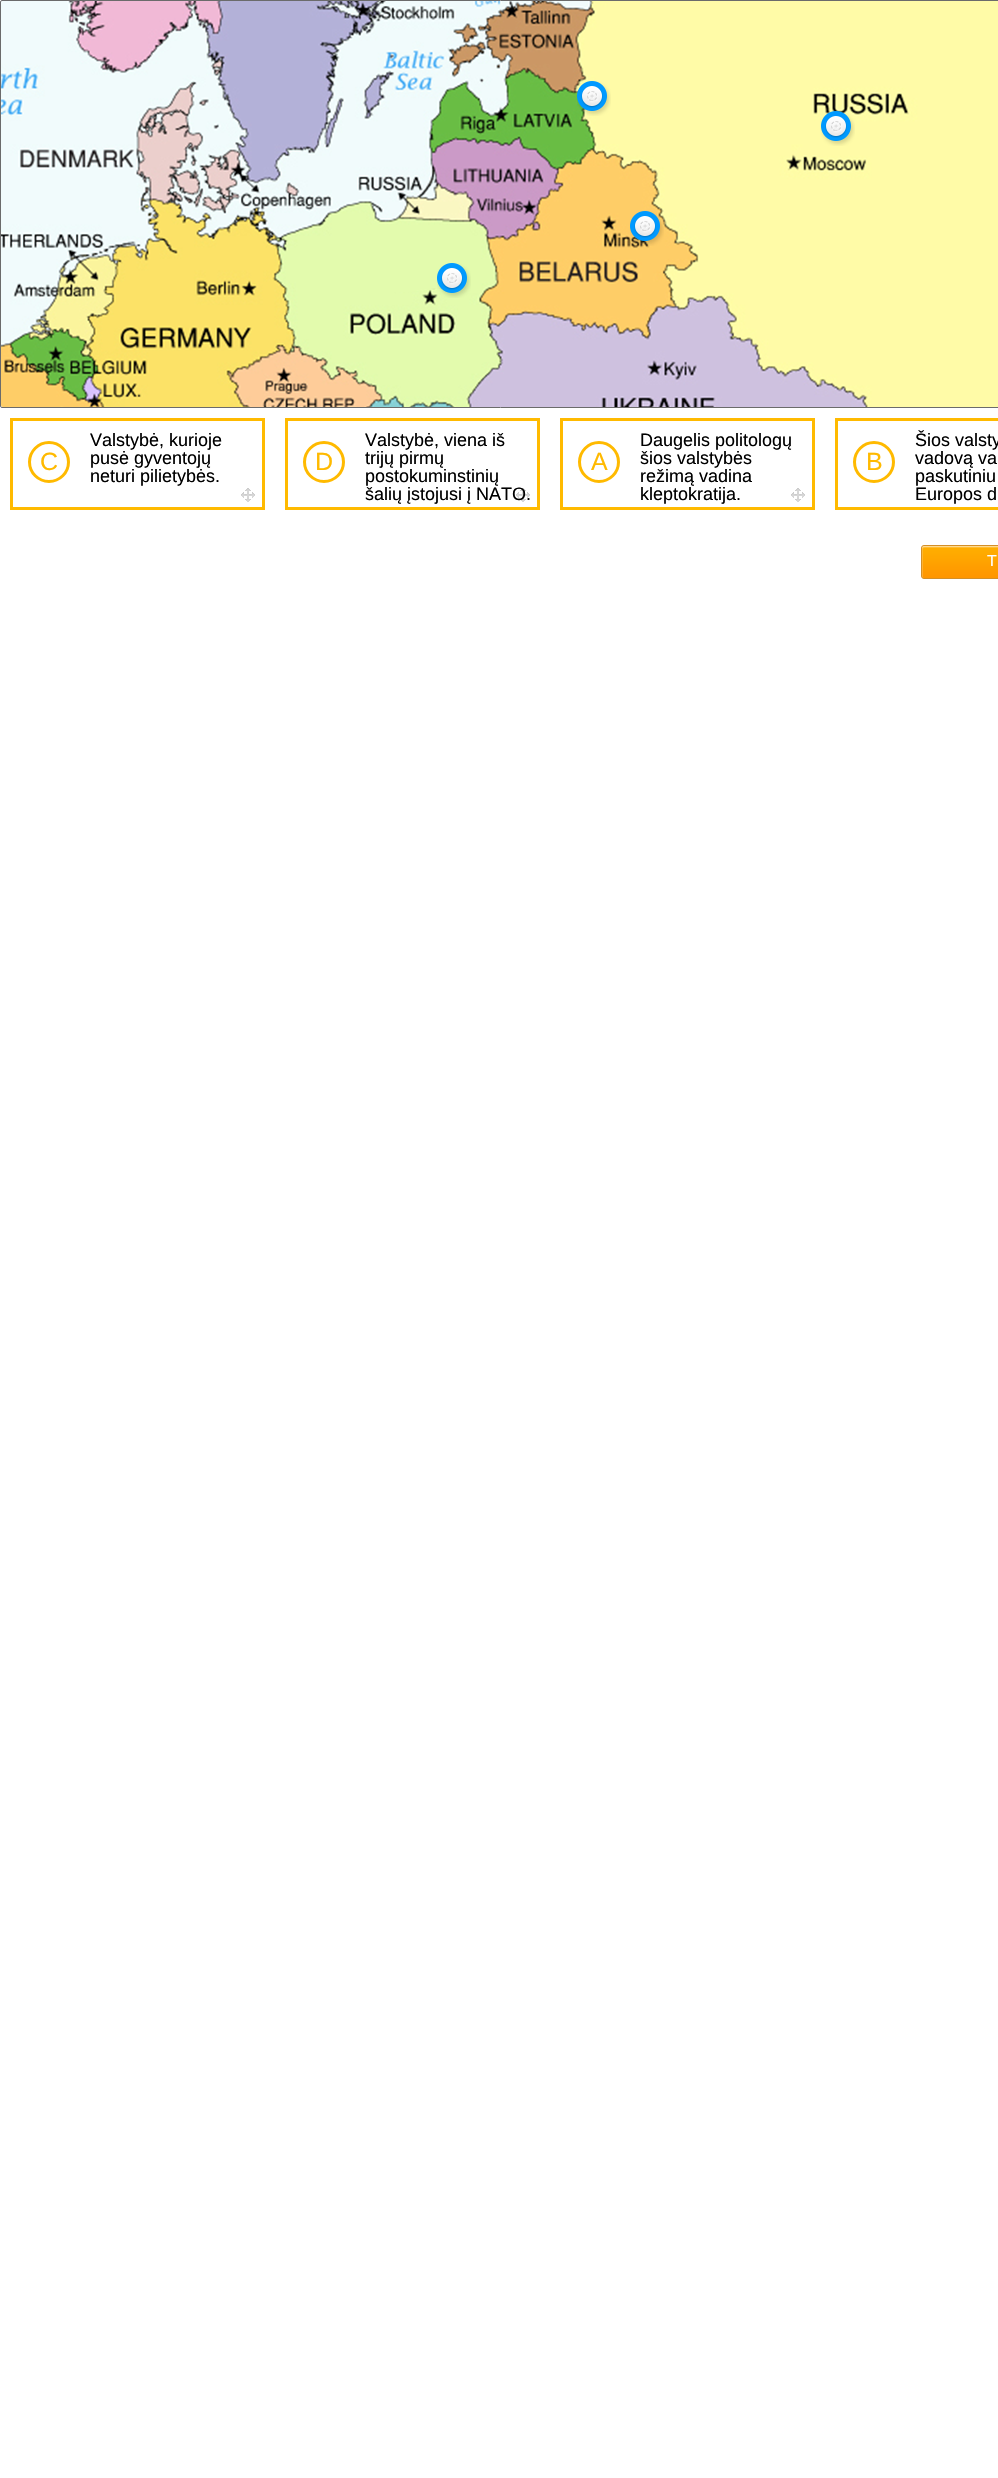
void draw(SkCanvas* c) {
SkPaint p;
p.setAntiAlias(true);
auto F=[&](const char* family, int weight, float size, bool italic = false){SkFontStyle style(weight, SkFontStyle::kNormal_Width,italic ? SkFontStyle::kItalic_Slant : SkFontStyle::kUpright_Slant);SkFont result(fontMgr->matchFamilyStyle(family, style), size);result.setSubpixel(true);return result;};
auto T=[&](const char* s, float x, float y, const SkFont& font){c->drawString(s, x, y, font, p);};
auto I=[&](const char* path, float x, float y, float w, float h){auto image = SkImages::DeferredFromEncodedData(SkData::MakeFromFileName(path));c->drawImageRect(image, SkRect::MakeXYWH(x, y, w, h), SkSamplingOptions());};
c->clear(0xffffffff);
I("1.png",1,1,997,406);
p.setStroke(true);
p.setStrokeWidth(1);
p.setColor(0xff6b6b6b);
c->drawRoundRect(SkRect::MakeXYWH(.5,.5,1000,407),1.5,1.5,p);
I("2.png",577,81,34,35);
I("3.png",821,111,34,35);
I("4.png",630,211,34,35);
I("5.png",437,263,34,35);
I("6.png",241,488,14,14);
p.setStrokeWidth(3);
p.setColor(0xffffba00);
c->drawRect(SkRect::MakeXYWH(11.5,419.5,252,89),p);
c->drawCircle(49,462,19.5,p);
auto f1 = F("Liberation Sans",400,25);
p.setStroke(false);
T("C",40,470,f1);
auto f2 = F("Liberation Sans",400,18);
p.setColor(0xff000000);
T("Valstybė, kurioje",90,446,f2);
T("pusė gyventojų",90,464,f2);
T("neturi pilietybės.",90,482,f2);
I("6.png",516,488,14,14);
p.setStroke(true);
p.setColor(0xffffba00);
c->drawRect(SkRect::MakeXYWH(286.5,419.5,252,89),p);
c->drawCircle(324,462,19.5,p);
p.setStroke(false);
T("D",315,470,f1);
p.setColor(0xff000000);
T("Valstybė, viena iš",365,446,f2);
T("trijų pirmų",365,464,f2);
T("postokuminstinių",365,482,f2);
T("šalių įstojusi į NATO.",365,500,f2);
I("6.png",791,488,14,14);
p.setStroke(true);
p.setColor(0xffffba00);
c->drawRect(SkRect::MakeXYWH(561.5,419.5,252,89),p);
c->drawCircle(599,462,19.5,p);
p.setStroke(false);
T("A",591,470,f1);
p.setColor(0xff000000);
T("Daugelis politologų",640,446,f2);
T("šios valstybės",640,464,f2);
T("režimą vadina",640,482,f2);
T("kleptokratija.",640,500,f2);
p.setStroke(true);
p.setColor(0xffffba00);
c->drawRect(SkRect::MakeXYWH(836.5,419.5,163,89),p);
c->drawCircle(874,462,19.5,p);
p.setStroke(false);
T("B",866,470,f1);
p.setColor(0xff000000);
T("Šios valsty",915,446,f2);
T("vadovą va",915,464,f2);
T("paskutiniu",915,482,f2);
T("Europos d",915,500,f2);
I("7.png",921,545,77,34);
auto f3 = F("Liberation Sans",400,16);
p.setColor(0xffffffff);
T("T",987,566,f3);
}
